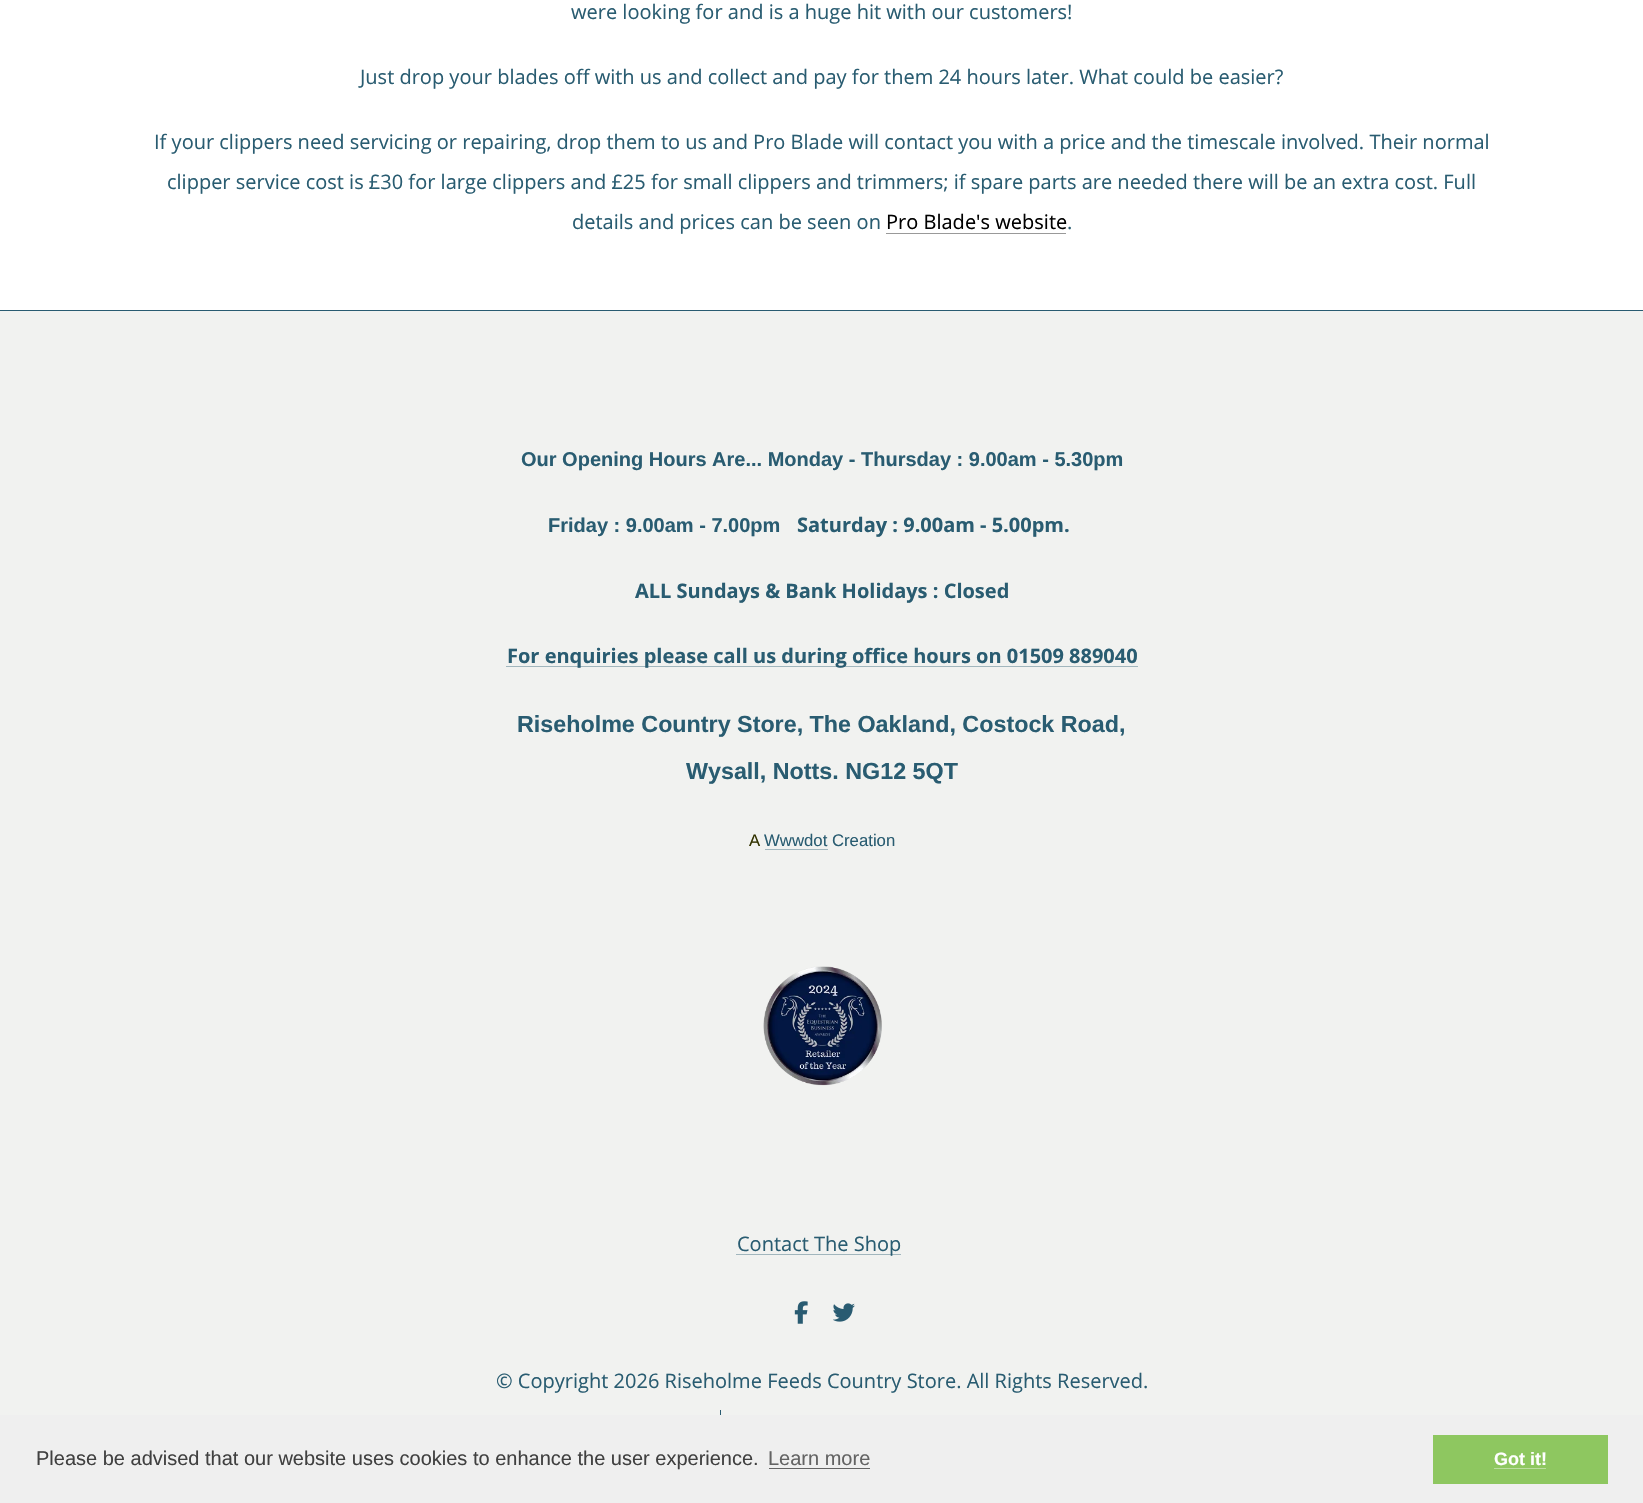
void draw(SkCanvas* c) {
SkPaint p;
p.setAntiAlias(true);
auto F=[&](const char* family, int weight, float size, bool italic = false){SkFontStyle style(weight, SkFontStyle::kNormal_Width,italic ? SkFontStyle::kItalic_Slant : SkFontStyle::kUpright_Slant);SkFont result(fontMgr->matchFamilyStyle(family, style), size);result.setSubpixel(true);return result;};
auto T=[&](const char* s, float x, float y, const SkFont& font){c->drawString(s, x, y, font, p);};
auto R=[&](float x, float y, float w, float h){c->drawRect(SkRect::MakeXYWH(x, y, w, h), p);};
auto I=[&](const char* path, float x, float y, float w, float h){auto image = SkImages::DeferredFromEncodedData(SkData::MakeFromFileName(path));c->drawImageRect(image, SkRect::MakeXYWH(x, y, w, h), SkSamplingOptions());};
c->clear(0xffffffff);
auto f1 = F("Open Sans",400,20);
p.setColor(0xff295c71);
T("were looking for and is a huge hit with our customers!",571,19,f1);
T("Just drop your blades off with us and collect and pay for them 24 hours later. What could be easier?",360,84,f1);
T("If your clippers need servicing or repairing, drop them to us and Pro Blade will contact you with a price and the timescale involved. Their normal",154,149,f1);
T("clipper service cost is £30 for large clippers and £25 for small clippers and trimmers; if spare parts are needed there will be an extra cost. Full",167,189,f1);
T("details and prices can be seen on",572,229,f1);
p.setColor(0xff000000);
T("Pro Blade's website",886,229,f1);
p.setColor(0xff999999);
R(886,233,180,1);
p.setColor(0xff295c71);
T(".",1067,229,f1);
p.setColor(0xfff1f2f0);
R(0,311,1643,1104);
p.setColor(0xff295b71);
R(0,310,1643,1);
auto f2 = F("Liberation Sans",700,20);
p.setColor(0xff295c71);
T("Our Opening Hours Are... Monday - Thursday : 9.00am - 5.30pm",521,466,f2);
T("Friday : 9.00am - 7.00pm",548,532,f2);
auto f3 = F("Open Sans",700,20);
T("Saturday : 9.00am - 5.00pm.",797,532,f3);
T("ALL Sundays & Bank Holidays : Closed",635,598,f3);
p.setColor(0xffa1b6bd);
R(506,666,632,1);
p.setColor(0xff295c71);
T("For enquiries please call us during office hours on 01509 889040",507,663,f3);
auto f4 = F("Liberation Sans",700,23.3);
T("Riseholme Country Store, The Oakland, Costock Road,",517,732,f4);
T("Wysall, Notts. NG12 5QT",686,779,f4);
auto f5 = F("Liberation Sans",400,16.75);
p.setColor(0xff333300);
T("A",749,846,f5);
p.setColor(0xff295c71);
T("Wwwdot Creation",764,846,f5);
p.setColor(0xffa1b6bd);
R(765,849,63,1);
I("1.png",763,966,119,120);
R(736,1254,165,1);
p.setColor(0xff295c71);
T("Contact The Shop",737,1251,f1);
I("2.png",794,1301,14,23);
I("3.png",833,1303,22,19);
T("© Copyright 2026 Riseholme Feeds Country Store. All Rights Reserved.",496,1388,f1);
p.setColor(0xff295b71);
R(720,1410,1,5);
p.setColor(0xffefefef);
R(0,1415,1643,88);
auto f6 = F("Liberation Sans",400,20);
p.setColor(0xff404040);
T("Please be advised that our website uses cookies to enhance the user experience.",36,1465,f6);
p.setColor(0xff636363);
T("Learn more",768,1465,f6);
R(769,1468,101,1);
p.setColor(0xff8ec760);
R(1433,1435,175,49);
auto f7 = F("Liberation Sans",700,18);
p.setColor(0xffffffff);
T("Got it!",1494,1465,f7);
p.setColor(0xffbbdda0);
R(1494,1468,52,1);
}
